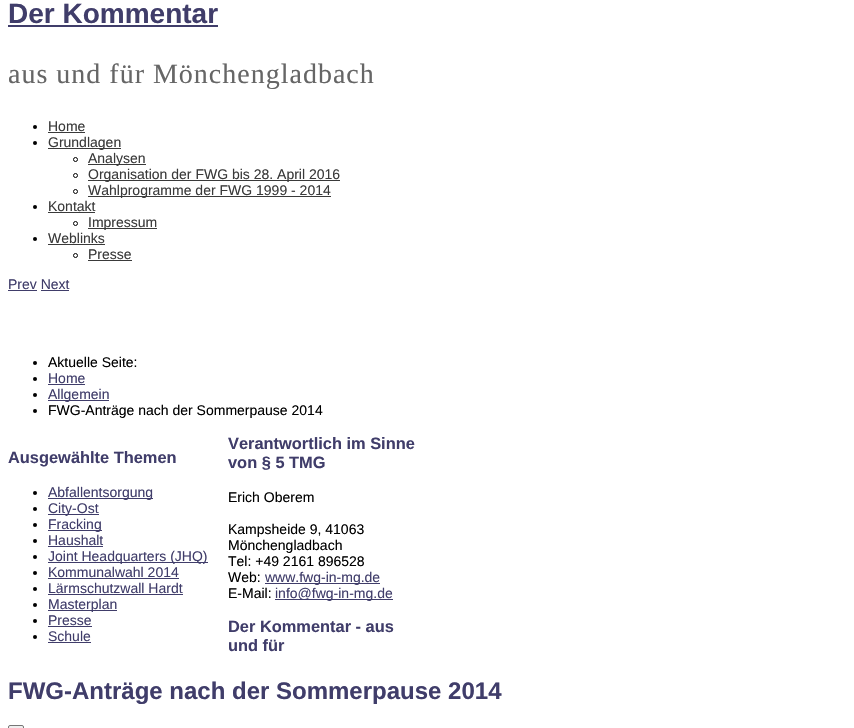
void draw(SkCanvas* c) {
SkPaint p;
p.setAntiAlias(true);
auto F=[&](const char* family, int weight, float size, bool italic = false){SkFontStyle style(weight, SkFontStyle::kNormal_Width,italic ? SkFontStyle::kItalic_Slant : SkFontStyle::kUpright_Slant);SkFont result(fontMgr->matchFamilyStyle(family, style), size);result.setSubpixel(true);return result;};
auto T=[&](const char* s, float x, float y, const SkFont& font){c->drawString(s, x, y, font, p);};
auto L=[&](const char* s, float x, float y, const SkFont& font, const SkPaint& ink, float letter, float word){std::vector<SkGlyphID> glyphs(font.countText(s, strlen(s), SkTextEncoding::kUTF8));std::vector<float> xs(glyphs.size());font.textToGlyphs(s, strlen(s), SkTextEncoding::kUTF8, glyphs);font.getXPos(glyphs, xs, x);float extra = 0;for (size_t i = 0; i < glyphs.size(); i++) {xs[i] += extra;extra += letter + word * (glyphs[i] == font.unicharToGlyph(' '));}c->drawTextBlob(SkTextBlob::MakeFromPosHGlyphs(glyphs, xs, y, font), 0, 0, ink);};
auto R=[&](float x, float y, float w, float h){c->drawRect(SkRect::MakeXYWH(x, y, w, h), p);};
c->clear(0xffffffff);
auto f1 = F("Liberation Sans",700,28);
p.setColor(0xff403d6a);
T("Der Kommentar",8,23,f1);
R(8,25,210,2);
auto f2 = F("Liberation Serif",400,28);
p.setColor(0xff666666);
L("aus und für Mönchengladbach",8,83,f2,p,1,0);
p.setColor(0xff000000);
c->drawCircle(35,127,2,p);
auto f3 = F("Liberation Sans",400,14);
p.setColor(0xff3a3a3a);
T("Home",48,131,f3);
R(48,132,37,1);
p.setColor(0xff000000);
c->drawCircle(35,143,2,p);
p.setColor(0xff3a3a3a);
R(48,148,73,1);
T("Grundlagen",48,147,f3);
p.setStroke(true);
p.setStrokeWidth(1);
p.setColor(0xff000000);
c->drawCircle(75.5,159.5,2,p);
p.setStroke(false);
p.setColor(0xff3a3a3a);
R(88,164,58,1);
T("Analysen",88,163,f3);
p.setStroke(true);
p.setColor(0xff000000);
c->drawCircle(75.5,175.5,2,p);
p.setStroke(false);
p.setColor(0xff3a3a3a);
R(88,180,252,1);
T("Organisation der FWG bis 28. April 2016",88,179,f3);
p.setStroke(true);
p.setColor(0xff000000);
c->drawCircle(75.5,191.5,2,p);
p.setStroke(false);
p.setColor(0xff3a3a3a);
R(88,196,243,1);
T("Wahlprogramme der FWG 1999 - 2014",88,195,f3);
p.setColor(0xff000000);
c->drawCircle(35,207,2,p);
p.setColor(0xff3a3a3a);
T("Kontakt",48,211,f3);
R(48,212,47,1);
p.setStroke(true);
p.setColor(0xff000000);
c->drawCircle(75.5,223.5,2,p);
p.setStroke(false);
p.setColor(0xff3a3a3a);
R(88,228,69,1);
T("Impressum",88,227,f3);
p.setColor(0xff000000);
c->drawCircle(35,239,2,p);
p.setColor(0xff3a3a3a);
T("Weblinks",48,243,f3);
R(48,244,57,1);
p.setStroke(true);
p.setColor(0xff000000);
c->drawCircle(75.5,255.5,2,p);
p.setStroke(false);
p.setColor(0xff3a3a3a);
T("Presse",88,259,f3);
R(88,260,44,1);
p.setColor(0xff403d6a);
T("Prev Next",8,289,f3);
R(8,290,29,1);
R(41,290,28,1);
p.setColor(0xff000000);
c->drawCircle(35,363,2,p);
T("Aktuelle Seite:",48,367,f3);
c->drawCircle(35,379,2,p);
p.setColor(0xff403d6a);
T("Home",48,383,f3);
R(48,384,37,1);
p.setColor(0xff000000);
c->drawCircle(35,395,2,p);
p.setColor(0xff403d6a);
R(48,400,61,1);
T("Allgemein",48,399,f3);
p.setColor(0xff000000);
c->drawCircle(35,411,2,p);
T("FWG-Anträge nach der Sommerpause 2014",48,415,f3);
auto f4 = F("Liberation Sans",700,16.4);
p.setColor(0xff403d6a);
T("Verantwortlich im Sinne",228,449,f4);
T("von § 5 TMG",228,468,f4);
p.setColor(0xff000000);
T("Erich Oberem",228,502,f3);
T("Kampsheide 9, 41063",228,534,f3);
T("Mönchengladbach",228,550,f3);
T("Tel: +49 2161 896528",228,566,f3);
T("Web:",228,582,f3);
p.setColor(0xff403d6a);
R(265,583,115,1);
T("www.fwg-in-mg.de",265,582,f3);
p.setColor(0xff000000);
T("E-Mail:",228,598,f3);
p.setColor(0xff403d6a);
R(275,599,118,1);
T("info@fwg-in-mg.de",275,598,f3);
T("Der Kommentar - aus",228,632,f4);
T("und für",228,651,f4);
T("Ausgewählte Themen",8,463,f4);
p.setColor(0xff000000);
c->drawCircle(35,493,2,p);
p.setColor(0xff403d6a);
R(48,498,105,1);
T("Abfallentsorgung",48,497,f3);
p.setColor(0xff000000);
c->drawCircle(35,509,2,p);
p.setColor(0xff403d6a);
R(48,514,51,1);
T("City-Ost",48,513,f3);
p.setColor(0xff000000);
c->drawCircle(35,525,2,p);
p.setColor(0xff403d6a);
R(48,530,54,1);
T("Fracking",48,529,f3);
p.setColor(0xff000000);
c->drawCircle(35,541,2,p);
p.setColor(0xff403d6a);
T("Haushalt",48,545,f3);
R(48,546,55,1);
p.setColor(0xff000000);
c->drawCircle(35,557,2,p);
p.setColor(0xff403d6a);
R(48,562,160,1);
T("Joint Headquarters (JHQ)",48,561,f3);
p.setColor(0xff000000);
c->drawCircle(35,573,2,p);
p.setColor(0xff403d6a);
T("Kommunalwahl 2014",48,577,f3);
R(48,578,131,1);
p.setColor(0xff000000);
c->drawCircle(35,589,2,p);
p.setColor(0xff403d6a);
T("Lärmschutzwall Hardt",48,593,f3);
R(48,594,135,1);
p.setColor(0xff000000);
c->drawCircle(35,605,2,p);
p.setColor(0xff403d6a);
R(48,610,69,1);
T("Masterplan",48,609,f3);
p.setColor(0xff000000);
c->drawCircle(35,621,2,p);
p.setColor(0xff403d6a);
T("Presse",48,625,f3);
R(48,626,44,1);
p.setColor(0xff000000);
c->drawCircle(35,637,2,p);
p.setColor(0xff403d6a);
T("Schule",48,641,f3);
R(48,642,43,1);
auto f5 = F("Liberation Sans",700,24);
T("FWG-Anträge nach der Sommerpause 2014",8,699,f5);
p.setColor(0xffefefef);
c->drawRoundRect(SkRect::MakeXYWH(8.5,725.5,15,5),1.5,1.5,p);
p.setStroke(true);
p.setColor(0xff767676);
c->drawRoundRect(SkRect::MakeXYWH(8.5,725.5,15,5),1.5,1.5,p);
}
